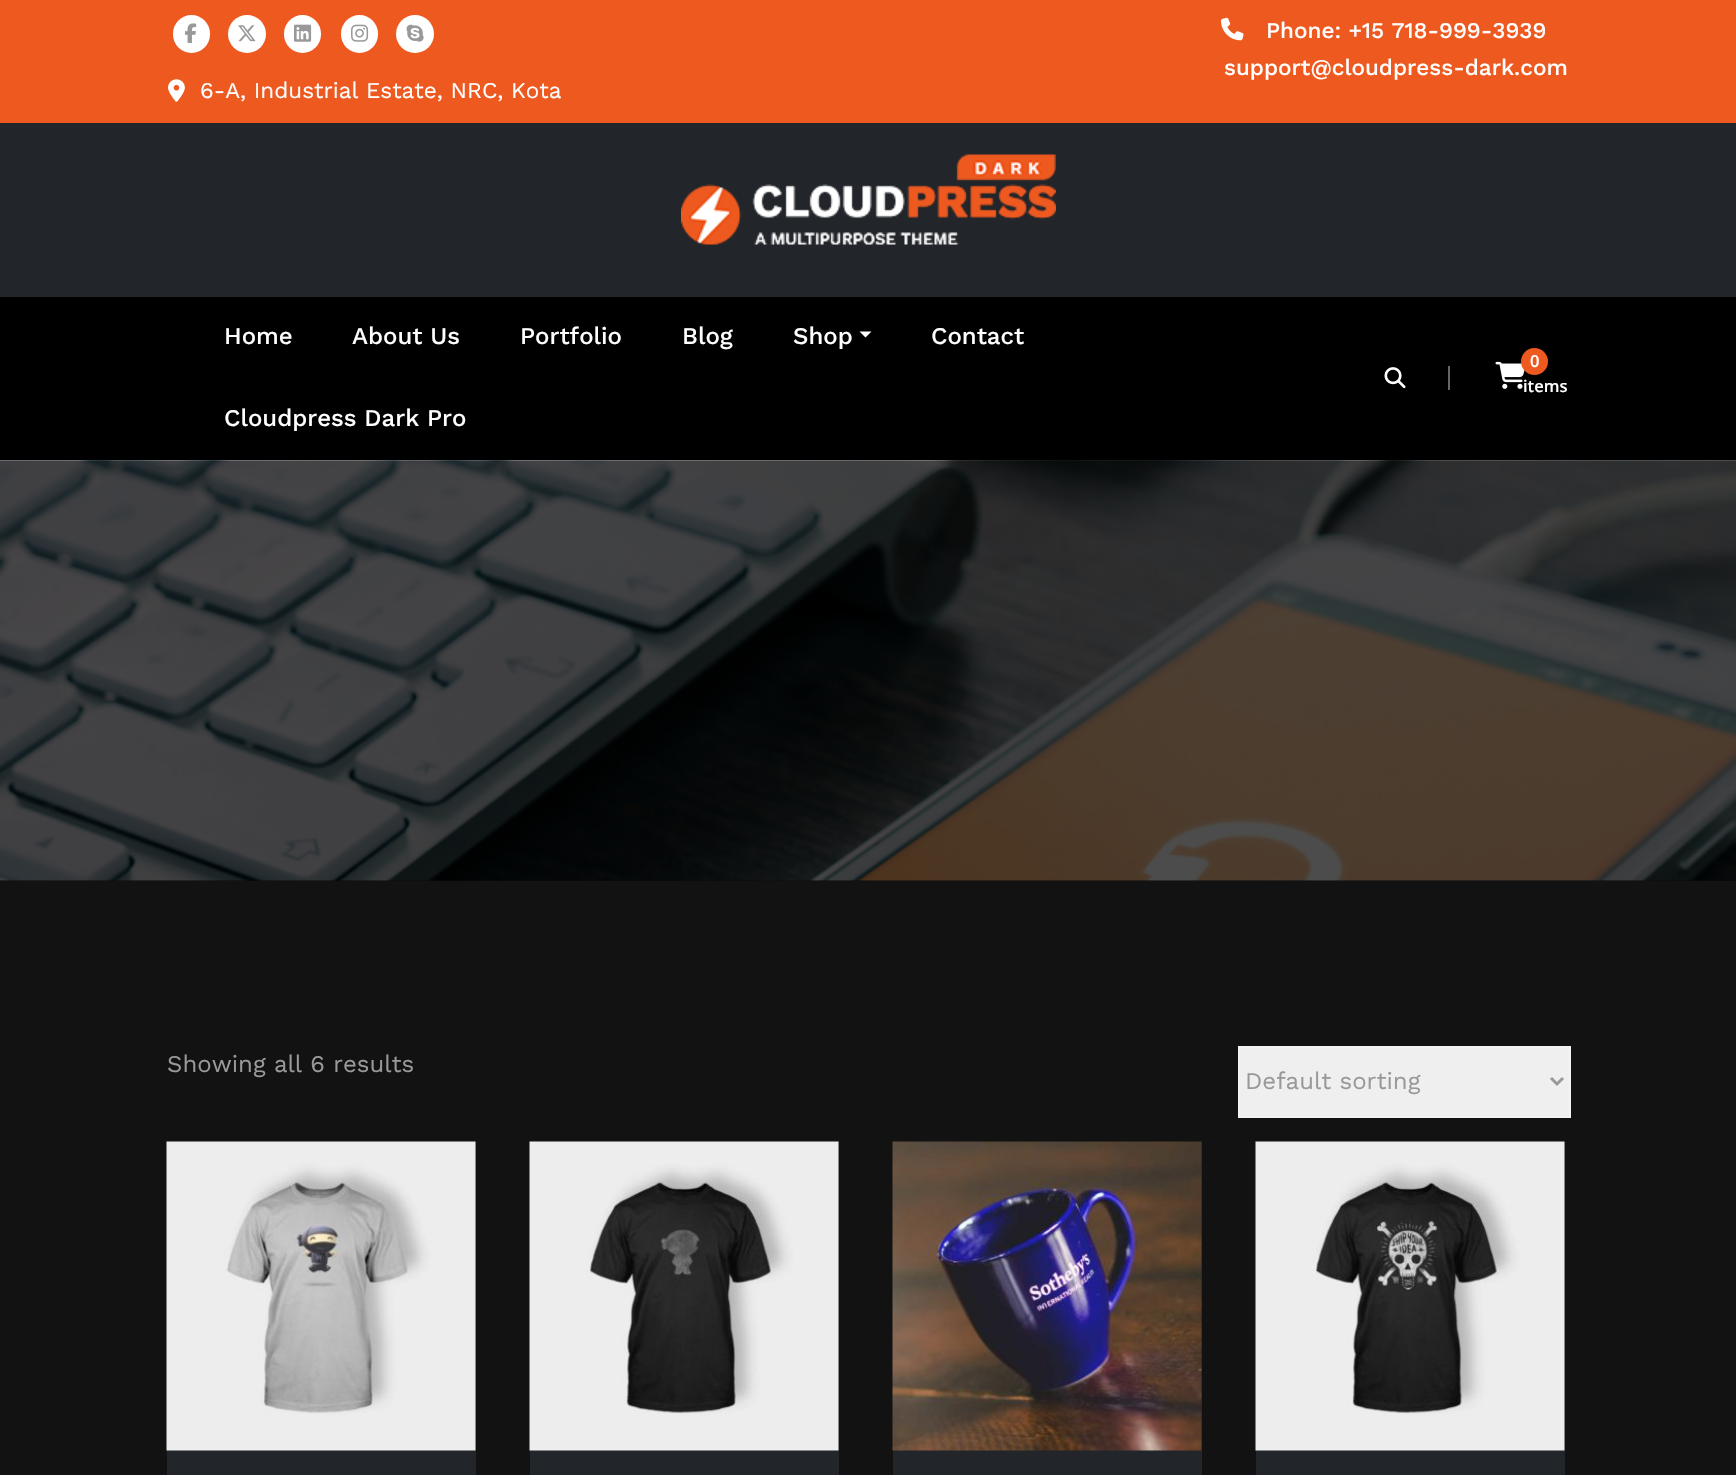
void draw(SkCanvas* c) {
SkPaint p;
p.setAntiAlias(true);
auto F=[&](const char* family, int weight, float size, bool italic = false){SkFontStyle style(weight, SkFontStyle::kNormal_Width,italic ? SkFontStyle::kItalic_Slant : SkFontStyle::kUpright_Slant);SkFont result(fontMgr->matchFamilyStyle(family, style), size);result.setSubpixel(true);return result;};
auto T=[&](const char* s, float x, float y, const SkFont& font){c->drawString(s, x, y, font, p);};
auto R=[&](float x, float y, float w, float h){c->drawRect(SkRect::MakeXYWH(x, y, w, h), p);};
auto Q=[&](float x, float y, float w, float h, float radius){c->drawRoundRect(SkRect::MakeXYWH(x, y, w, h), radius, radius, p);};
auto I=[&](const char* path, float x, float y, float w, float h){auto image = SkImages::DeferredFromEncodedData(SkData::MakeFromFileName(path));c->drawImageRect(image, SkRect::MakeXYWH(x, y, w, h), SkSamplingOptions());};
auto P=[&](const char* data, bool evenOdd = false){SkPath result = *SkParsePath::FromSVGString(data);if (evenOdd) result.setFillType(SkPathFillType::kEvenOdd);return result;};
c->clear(0xff121212);
p.setColor(0xffee591f);
R(0,0,1736,123);
I("1.png",1221,17,23,24);
auto f1 = F("Work Sans",500,22.5);
p.setColor(0xffffffff);
T("Phone: +15 718-999-3939",1266,38,f1);
T("support@cloudpress-dark.com",1224,75,f1);
Q(173,15,37,38,18.5);
I("2.png",185,23,12,20);
c->drawCircle(247,34,19,p);
I("3.png",238,25,18,17);
Q(284,15,37,38,18.5);
I("4.png",294,24,18,18);
Q(341,15,37,38,18.5);
I("5.png",351,24,18,18);
c->drawCircle(415,34,19,p);
I("6.png",406,24,18,18);
I("7.png",168,79,17,23);
auto f2 = F("Work Sans",400,22.5);
T("6-A, Industrial Estate, NRC, Kota",200,98,f2);
p.setColor(0xff22252a);
R(0,123,1736,174);
I("8.png",681,154,375,91);
p.setColor(0xff000000);
R(0,297,1736,164);
auto f3 = F("Work Sans",500,24);
p.setColor(0xffffffff);
T("Home",224,344,f3);
T("About Us",352,344,f3);
T("Portfolio",520,344,f3);
T("Blog",682,344,f3);
T("Shop",793,344,f3);
c->drawPath(P("M859.5 331.5h12l-6 6z"),p);
T("Contact",931,344,f3);
T("Cloudpress Dark Pro",224,426,f3);
p.setColor(0xff666666);
R(1448,366,2,24);
I("9.png",1384,367,22,22);
I("10.png",1495,361,30,28);
p.setColor(0xffee591f);
c->drawCircle(1534.5,361.5,13.5,p);
auto f4 = F("Open Sans",600,16.5);
p.setColor(0xffffffff);
T("0",1530,367,f4);
T("items",1523,392,f4);
p.setColor(0xff070a0d);
R(0,880,1736,1);
I("11.png",0,460,1736,421);
auto f5 = F("Work Sans",400,24);
p.setColor(0xff999999);
T("Showing all 6 results",167,1072,f5);
p.setColor(0xffefefef);
c->drawRect(SkRect::MakeXYWH(1239,1047,331,70),p);
p.setStroke(true);
p.setStrokeWidth(2);
p.setColor(0xfff3f3f3);
c->drawRect(SkRect::MakeXYWH(1239,1047,331,70),p);
p.setStrokeWidth(3);
p.setColor(0xff999999);
c->drawPath(P("M1551 1078l6 6l6-6"),p);
p.setStroke(false);
T("Default sorting",1245,1089,f5);
p.setColor(0xff22252a);
R(167,1142,309,333);
I("12.png",166,1141,310,310);
R(530,1142,309,333);
I("13.png",529,1141,310,310);
R(893,1142,309,333);
I("14.png",892,1141,310,310);
R(1256,1142,309,333);
I("15.png",1255,1141,310,310);
}
